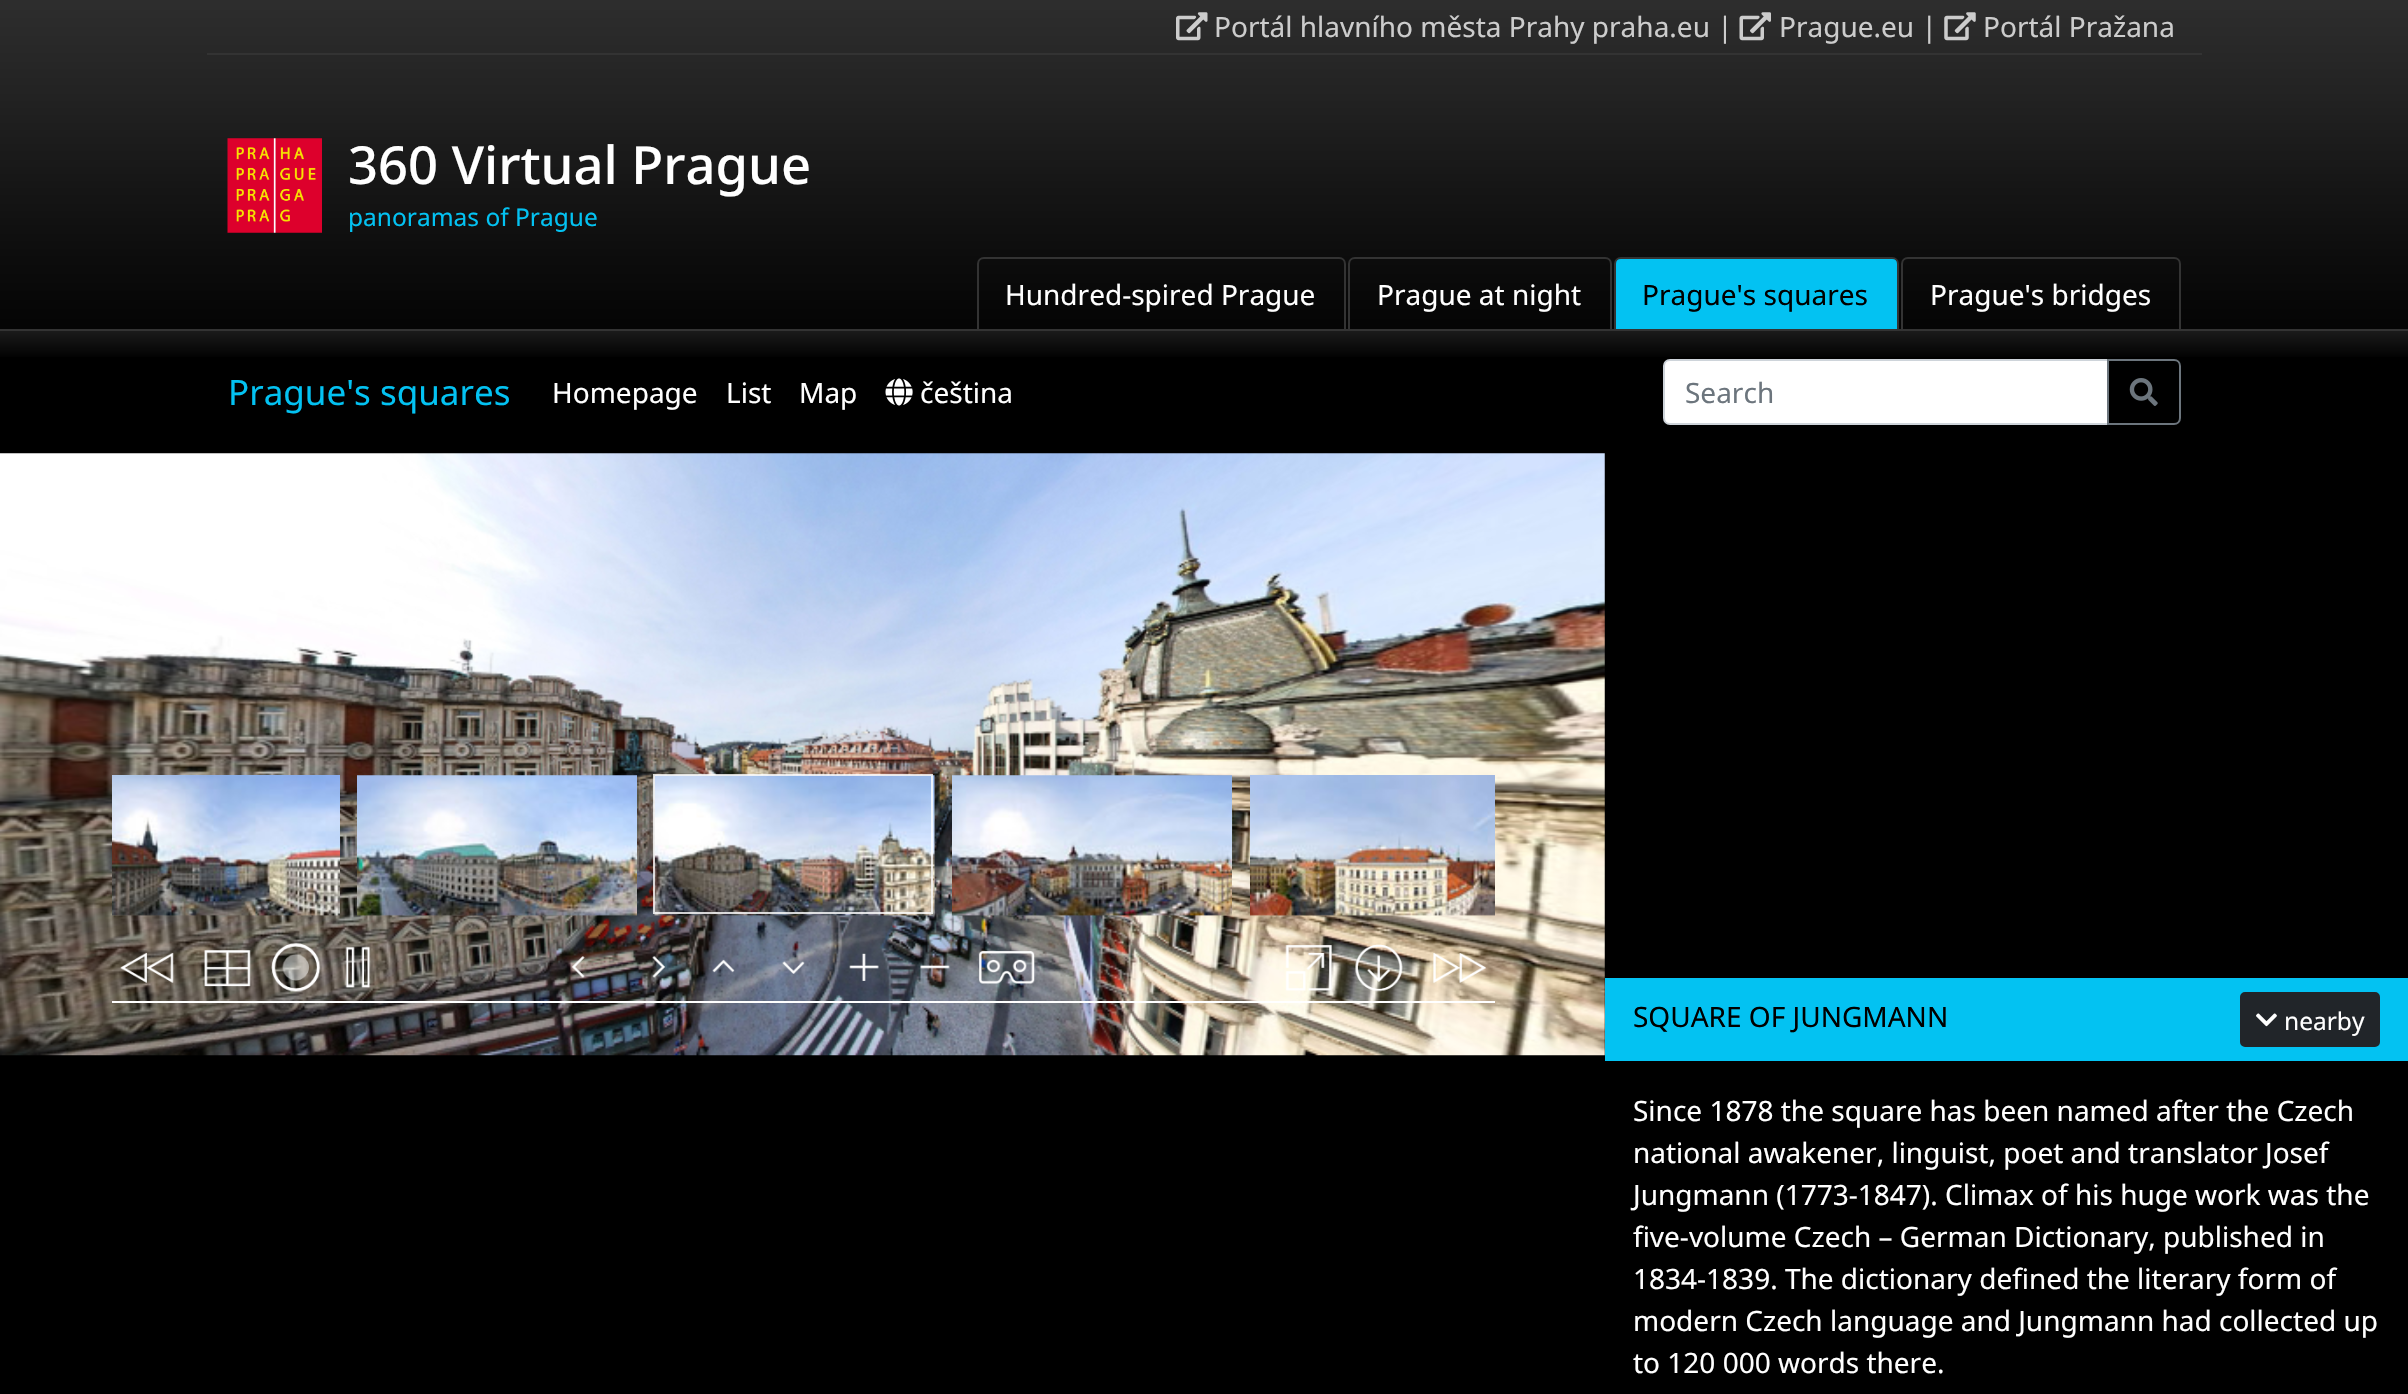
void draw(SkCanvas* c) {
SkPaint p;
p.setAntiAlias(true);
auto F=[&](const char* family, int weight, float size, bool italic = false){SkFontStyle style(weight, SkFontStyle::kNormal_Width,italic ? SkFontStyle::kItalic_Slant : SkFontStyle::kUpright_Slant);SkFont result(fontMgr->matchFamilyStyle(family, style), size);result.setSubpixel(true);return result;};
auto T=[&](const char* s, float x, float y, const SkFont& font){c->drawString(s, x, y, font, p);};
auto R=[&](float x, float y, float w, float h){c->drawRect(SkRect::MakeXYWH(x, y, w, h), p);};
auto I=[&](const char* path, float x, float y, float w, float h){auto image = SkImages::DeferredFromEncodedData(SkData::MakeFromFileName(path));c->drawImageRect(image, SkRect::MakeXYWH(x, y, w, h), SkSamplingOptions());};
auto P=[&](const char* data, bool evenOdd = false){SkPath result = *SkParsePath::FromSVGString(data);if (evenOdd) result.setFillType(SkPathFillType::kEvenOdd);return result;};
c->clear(0xff000000);
I("1.png",0,0,2408,329);
p.setColor(0xff333333);
R(207,53,1995,2);
I("2.png",1176,12,32,29);
auto f1 = F("Noto Sans",400,28);
p.setColor(0xffcccccc);
T("Portál hlavního města Prahy praha.eu |",1214,37,f1);
I("3.png",1739,12,32,29);
T("Prague.eu |",1779,37,f1);
I("4.png",1944,12,32,29);
T("Portál Pražana",1983,37,f1);
I("5.png",227,138,95,95);
auto f2 = F("Noto Sans",500,52.5);
p.setColor(0xffffffff);
T("360 Virtual Prague",348,184,f2);
auto f3 = F("Noto Sans",400,24.5);
p.setColor(0xff03c2f2);
T("panoramas of Prague",348,226,f3);
p.setStroke(true);
p.setStrokeWidth(2);
p.setColor(0xff333333);
c->drawPath(P("M984 258h355c3.5 0 6 2.5 6 6v66h-367v-66c0-3.5 2.5-6 6-6z"),p);
p.setStroke(false);
p.setColor(0xffffffff);
T("Hundred-spired Prague",1005,305,f1);
p.setStroke(true);
p.setColor(0xff333333);
c->drawPath(P("M1355 258h250c3.5 0 6 2.5 6 6v66h-262v-66c0-3.5 2.5-6 6-6z"),p);
p.setStroke(false);
p.setColor(0xffffffff);
T("Prague at night",1377,305,f1);
p.setColor(0xff03c2f2);
c->drawPath(P("M1621 258h271c3.5 0 6 2.5 6 6v66h-283v-66c0-3.5 2.5-6 6-6z"),p);
p.setStroke(true);
p.setColor(0xff333333);
c->drawPath(P("M1621 258h271c3.5 0 6 2.5 6 6v66h-283v-66c0-3.5 2.5-6 6-6z"),p);
p.setStroke(false);
p.setColor(0xff000000);
T("Prague's squares",1642,305,f1);
p.setStroke(true);
p.setColor(0xff333333);
c->drawPath(P("M1908 258h266c3.5 0 6 2.5 6 6v66h-278v-66c0-3.5 2.5-6 6-6z"),p);
p.setStroke(false);
p.setColor(0xffffffff);
T("Prague's bridges",1930,305,f1);
{
const SkColor colors[] = {0xff1a1a1a,0xff000000,0xff000000};
const float stops[] = {0,.24,1};
const SkPoint ends[] = {{1204,331}, {1204,453}};
p.setShader(SkGradientShader::MakeLinear(ends, colors, stops, 3, SkTileMode::kClamp));
p.setAlpha(255);
}
R(0,331,2408,26);
p.setShader(nullptr);
p.setColor(0xff333333);
R(0,329,2408,2);
auto f4 = F("Noto Sans",400,35);
p.setColor(0xff03c2f2);
T("Prague's squares",228,405,f4);
p.setColor(0xffffffff);
T("Homepage",552,403,f1);
T("List",726,403,f1);
T("Map",799,403,f1);
I("6.png",885,378,28,28);
T("čeština",920,403,f1);
c->drawPath(P("M1670 360h438v64h-438c-3.5 0-6-2.5-6-6v-52c0-3.5 2.5-6 6-6z"),p);
p.setStroke(true);
p.setColor(0xffced4da);
c->drawPath(P("M1670 360h438v64h-438c-3.5 0-6-2.5-6-6v-52c0-3.5 2.5-6 6-6z"),p);
p.setStroke(false);
p.setColor(0xff6c757d);
T("Search",1685,403,f1);
p.setStroke(true);
c->drawPath(P("M2108 360h66c3.5 0 6 2.5 6 6v52c0 3.5-2.5 6-6 6h-66z"),p);
I("7.png",2129,378,29,28);
I("8.png",0,453,1605,603);
I("9.png",112,775,228,141);
I("10.png",357,775,280,141);
I("11.png",654,775,281,141);
p.setColor(0xccffffff);
c->drawRect(SkRect::MakeXYWH(654,775,278,138),p);
I("12.png",952,775,280,141);
I("13.png",1250,775,245,141);
I("14.png",120,952,54,31);
I("15.png",204,950,47,37);
I("16.png",271,943,50,49);
I("17.png",345,946,26,42);
I("18.png",571,956,14,22);
I("19.png",652,956,13,22);
I("20.png",712,959,23,14);
I("21.png",782,961,23,13);
I("22.png",849,953,30,28);
I("23.png",920,965,30,4);
I("24.png",978,950,57,34);
I("25.png",1285,945,47,46);
I("26.png",1355,944,48,48);
I("27.png",1433,952,53,31);
p.setStroke(false);
p.setColor(0xffffffff);
R(112,1001,1383,2);
p.setColor(0xff03c2f2);
R(1605,978,803,83);
p.setColor(0xff000000);
T("SQUARE OF JUNGMANN",1633,1027,f1);
p.setColor(0xff212529);
c->drawRoundRect(SkRect::MakeXYWH(2241,993,138,53),4,4,p);
p.setStroke(true);
c->drawRoundRect(SkRect::MakeXYWH(2241,993,138,53),4,4,p);
I("28.png",2256,1013,21,14);
p.setStroke(false);
p.setColor(0xffffffff);
T("nearby",2284,1030,f3);
T("Since 1878 the square has been named after the Czech",1633,1121,f1);
T("national awakener, linguist, poet and translator Josef",1633,1163,f1);
T("Jungmann (1773-1847). Climax of his huge work was the",1633,1205,f1);
T("five-volume Czech – German Dictionary, published in",1633,1247,f1);
T("1834-1839. The dictionary defined the literary form of",1633,1289,f1);
T("modern Czech language and Jungmann had collected up",1633,1331,f1);
T("to 120 000 words there.",1633,1373,f1);
}
